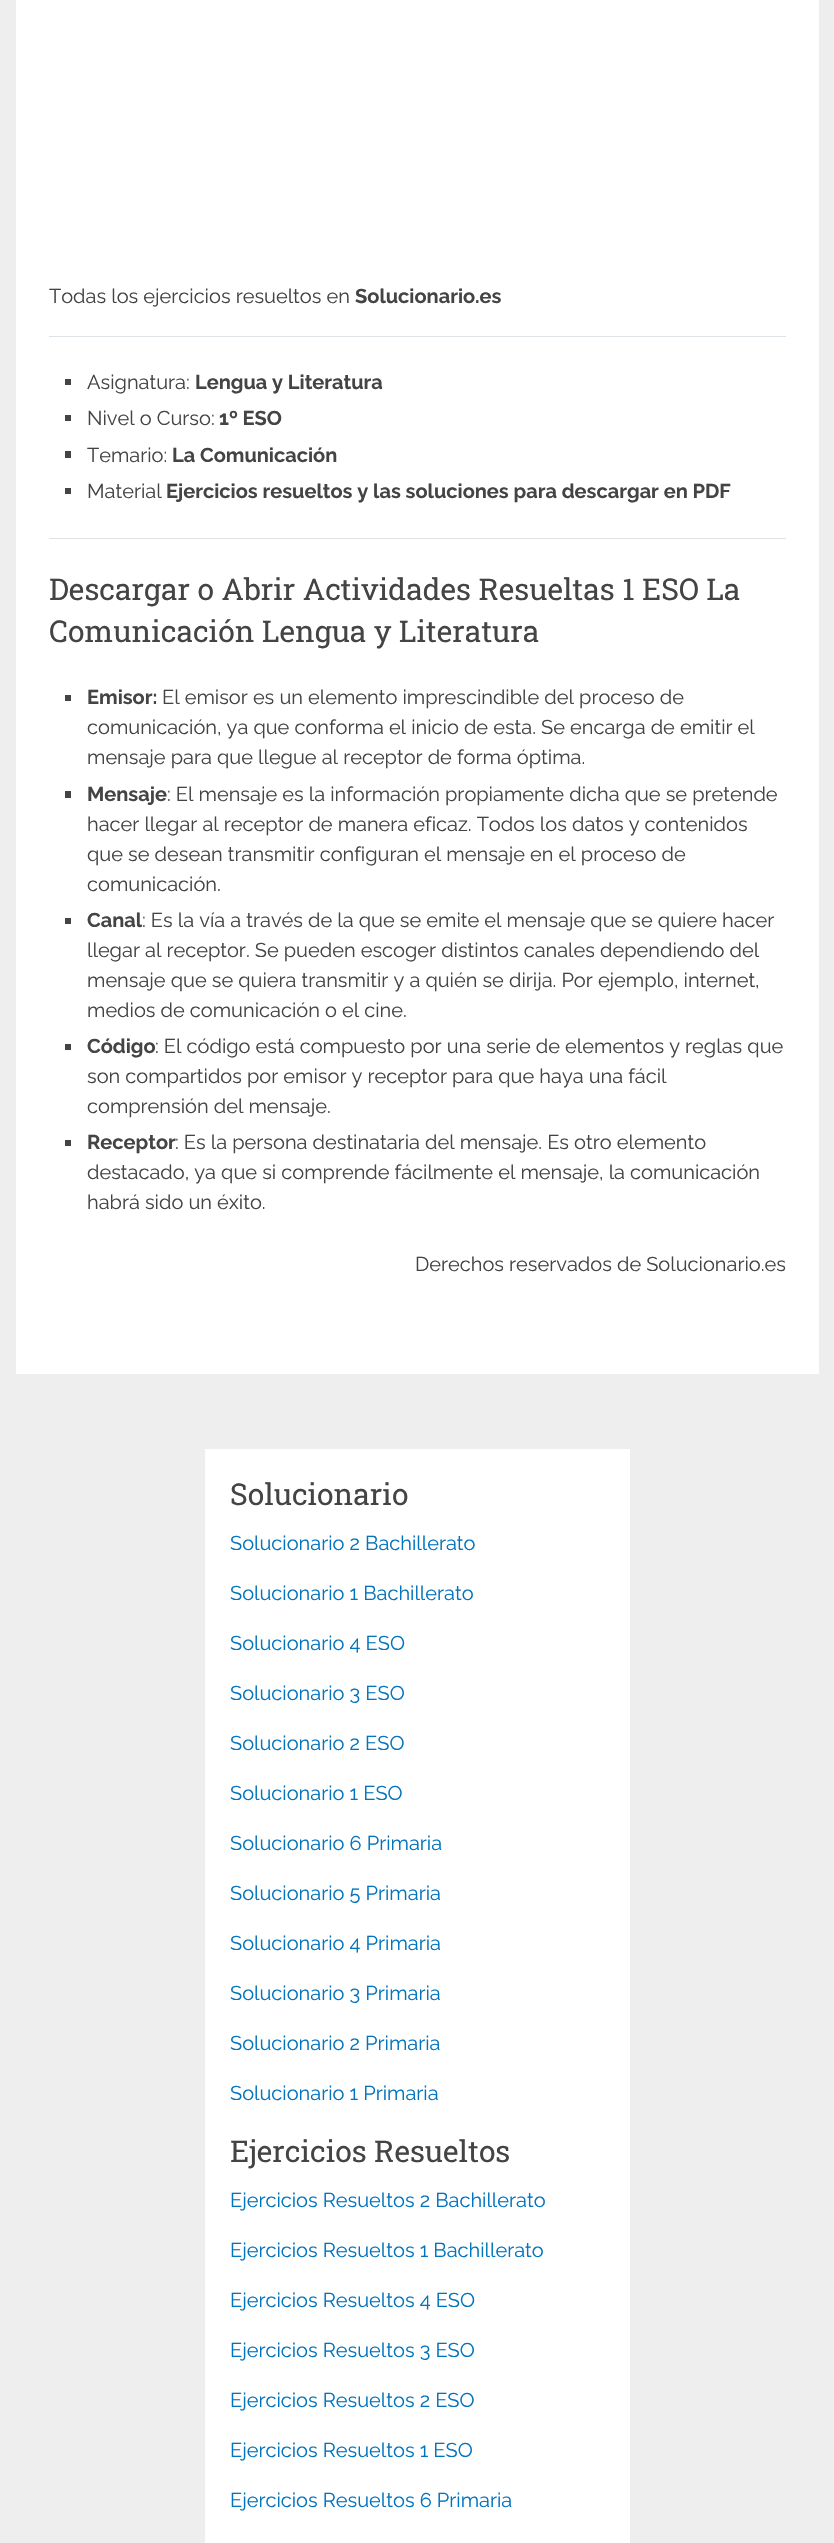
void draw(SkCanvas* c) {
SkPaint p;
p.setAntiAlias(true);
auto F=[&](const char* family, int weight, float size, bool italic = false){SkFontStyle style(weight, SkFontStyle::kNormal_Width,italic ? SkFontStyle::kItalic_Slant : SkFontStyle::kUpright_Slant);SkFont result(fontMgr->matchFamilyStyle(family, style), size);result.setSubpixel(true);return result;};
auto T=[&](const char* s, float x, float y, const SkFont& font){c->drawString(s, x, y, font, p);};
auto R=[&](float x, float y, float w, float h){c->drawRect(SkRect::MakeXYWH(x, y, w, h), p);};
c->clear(0xffeeeeee);
p.setColor(0xffffffff);
R(16,0,803,1374);
auto f1 = F("Raleway",400,20);
p.setColor(0xff444444);
T("Todas los ejercicios resueltos en",49,303,f1);
auto f2 = F("Raleway",700,20);
T("Solucionario.es",355,303,f2);
p.setColor(0xffdde3e7);
R(49,336,737,1);
p.setColor(0xff444444);
R(65,379,6,6);
T("Asignatura:",87,389,f1);
T("Lengua y Literatura",195,389,f2);
R(65,415,6,6);
T("Nivel o Curso:",87,425,f1);
T("1º ESO",219,425,f2);
R(65,451,6,7);
T("Temario:",87,462,f1);
T("La Comunicación",172,462,f2);
R(65,488,6,6);
T("Material",87,498,f1);
T("Ejercicios resueltos y las soluciones para descargar en PDF",166,498,f2);
p.setColor(0xffdde3e7);
R(49,538,737,1);
auto f3 = F("Roboto Slab",400,30);
p.setColor(0xff444444);
T("Descargar o Abrir Actividades Resueltas 1 ESO La",49,600,f3);
T("Comunicación Lengua y Literatura",49,642,f3);
R(65,695,6,6);
T("Emisor:",87,704,f2);
T("El emisor es un elemento imprescindible del proceso de",162,704,f1);
T("comunicación, ya que conforma el inicio de esta. Se encarga de emitir el",87,734,f1);
T("mensaje para que llegue al receptor de forma óptima.",87,764,f1);
R(65,791,6,7);
T("Mensaje",87,801,f2);
T(": El mensaje es la información propiamente dicha que se pretende",167,801,f1);
T("hacer llegar al receptor de manera eficaz. Todos los datos y contenidos",87,831,f1);
T("que se desean transmitir configuran el mensaje en el proceso de",87,861,f1);
T("comunicación.",87,891,f1);
R(65,918,6,6);
T("Canal",87,927,f2);
T(": Es la vía a través de la que se emite el mensaje que se quiere hacer",142,927,f1);
T("llegar al receptor. Se pueden escoger distintos canales dependiendo del",87,957,f1);
T("mensaje que se quiera transmitir y a quién se dirija. Por ejemplo, internet,",87,987,f1);
T("medios de comunicación o el cine.",87,1017,f1);
R(65,1044,6,6);
T("Código",87,1053,f2);
T(": El código está compuesto por una serie de elementos y reglas que",155,1053,f1);
T("son compartidos por emisor y receptor para que haya una fácil",87,1083,f1);
T("comprensión del mensaje.",87,1113,f1);
R(65,1140,6,6);
T("Receptor",87,1149,f2);
T(": Es la persona destinataria del mensaje. Es otro elemento",175,1149,f1);
T("destacado, ya que si comprende fácilmente el mensaje, la comunicación",87,1179,f1);
T("habrá sido un éxito.",87,1209,f1);
T("Derechos reservados de Solucionario.es",415,1271,f1);
p.setColor(0xffffffff);
R(205,1449,425,1094);
p.setColor(0xff444444);
T("Solucionario",230,1505,f3);
p.setColor(0xff0274be);
T("Solucionario 2 Bachillerato",230,1550,f1);
T("Solucionario 1 Bachillerato",230,1600,f1);
T("Solucionario 4 ESO",230,1650,f1);
T("Solucionario 3 ESO",230,1700,f1);
T("Solucionario 2 ESO",230,1750,f1);
T("Solucionario 1 ESO",230,1800,f1);
T("Solucionario 6 Primaria",230,1850,f1);
T("Solucionario 5 Primaria",230,1900,f1);
T("Solucionario 4 Primaria",230,1950,f1);
T("Solucionario 3 Primaria",230,2000,f1);
T("Solucionario 2 Primaria",230,2050,f1);
T("Solucionario 1 Primaria",230,2100,f1);
p.setColor(0xff444444);
T("Ejercicios Resueltos",230,2162,f3);
p.setColor(0xff0274be);
T("Ejercicios Resueltos 2 Bachillerato",230,2207,f1);
T("Ejercicios Resueltos 1 Bachillerato",230,2257,f1);
T("Ejercicios Resueltos 4 ESO",230,2307,f1);
T("Ejercicios Resueltos 3 ESO",230,2357,f1);
T("Ejercicios Resueltos 2 ESO",230,2407,f1);
T("Ejercicios Resueltos 1 ESO",230,2457,f1);
T("Ejercicios Resueltos 6 Primaria",230,2507,f1);
}
